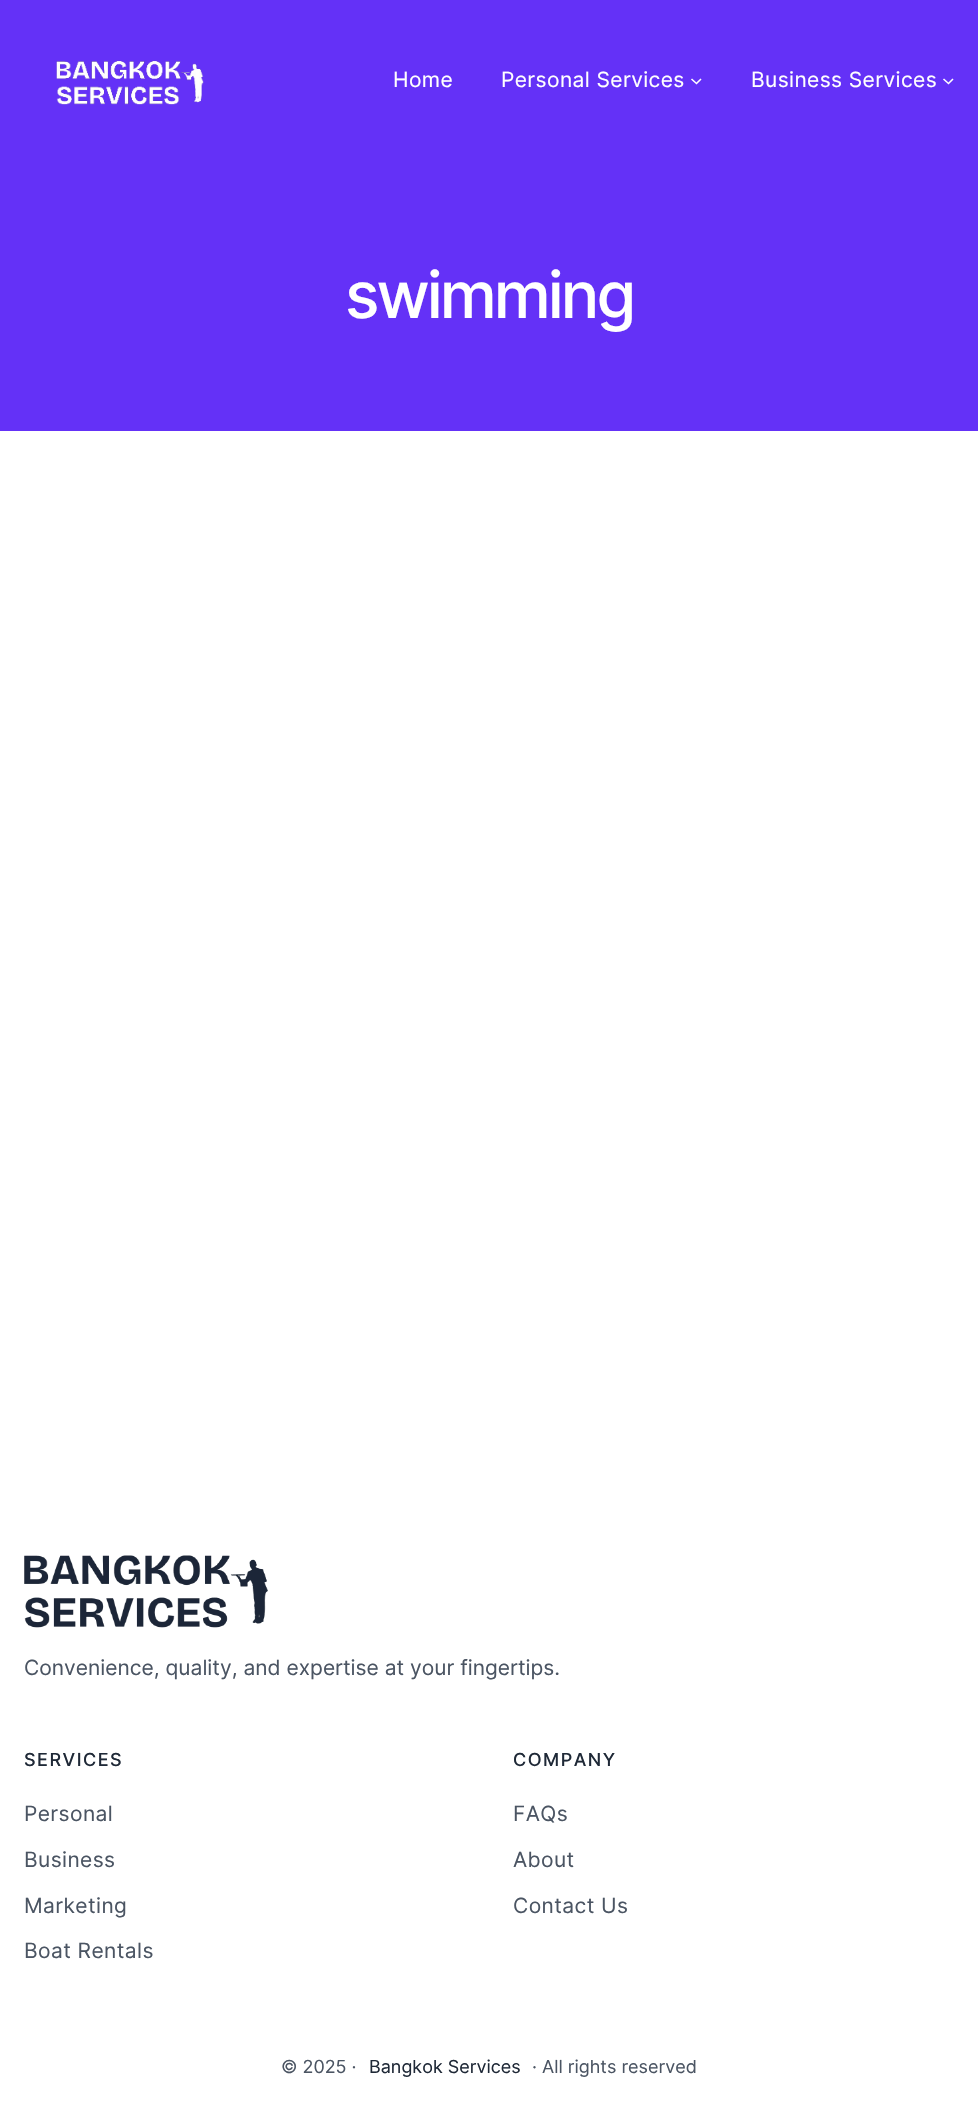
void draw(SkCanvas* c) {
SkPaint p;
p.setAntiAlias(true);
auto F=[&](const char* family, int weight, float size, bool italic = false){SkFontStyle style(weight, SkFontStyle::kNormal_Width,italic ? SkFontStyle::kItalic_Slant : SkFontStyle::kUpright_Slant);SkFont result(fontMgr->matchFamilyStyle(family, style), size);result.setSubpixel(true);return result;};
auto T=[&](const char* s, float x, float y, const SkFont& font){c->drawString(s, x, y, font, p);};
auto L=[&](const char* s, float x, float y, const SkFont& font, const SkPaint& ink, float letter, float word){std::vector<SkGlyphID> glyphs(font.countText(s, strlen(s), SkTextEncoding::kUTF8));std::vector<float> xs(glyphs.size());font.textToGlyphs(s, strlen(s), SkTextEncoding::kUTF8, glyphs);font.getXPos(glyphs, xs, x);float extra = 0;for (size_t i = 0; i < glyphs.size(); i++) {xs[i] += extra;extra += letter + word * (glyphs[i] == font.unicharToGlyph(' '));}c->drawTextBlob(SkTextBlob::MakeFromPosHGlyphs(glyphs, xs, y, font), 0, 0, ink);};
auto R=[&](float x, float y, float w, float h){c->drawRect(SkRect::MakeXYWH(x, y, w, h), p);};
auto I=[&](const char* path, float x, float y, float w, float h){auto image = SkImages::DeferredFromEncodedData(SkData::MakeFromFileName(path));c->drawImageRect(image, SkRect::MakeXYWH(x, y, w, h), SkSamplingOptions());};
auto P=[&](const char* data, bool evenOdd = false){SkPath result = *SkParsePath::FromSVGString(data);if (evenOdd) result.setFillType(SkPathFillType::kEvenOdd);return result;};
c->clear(0xffffffff);
p.setColor(0xff6431f7);
R(0,0,978,431);
I("1.png",56,60,148,45);
auto f1 = F("Inter",400,21);
p.setColor(0xffffffff);
L("Home",393,87,f1,p,.4,0);
L("Personal Services",501,87,f1,p,.4,0);
p.setStroke(true);
p.setStrokeWidth(1.6);
c->drawPath(P("M691.5 79l5 4.5l4.5-4.5"),p);
p.setStroke(false);
L("Business Services",751,87,f1,p,.4,0);
p.setStroke(true);
c->drawPath(P("M943.5 79l5 4.5l4.5-4.5"),p);
auto f2 = F("Inter",500,64.5);
p.setStroke(false);
L("swimming",345,318,f2,p,-3,0);
I("2.png",24,1555,244,73);
p.setColor(0xff4b5563);
T("Convenience, quality, and expertise at your fingertips.",24,1675,f1);
auto f3 = F("Inter",500,18);
p.setColor(0xff1f2937);
L("SERVICES",24,1766,f3,p,1.5,0);
p.setColor(0xff4b5563);
L("Personal",24,1821,f1,p,.4,0);
L("Business",24,1867,f1,p,.4,0);
L("Marketing",24,1913,f1,p,.4,0);
L("Boat Rentals",24,1958,f1,p,.4,0);
p.setColor(0xff1f2937);
L("COMPANY",513,1766,f3,p,1.5,0);
p.setColor(0xff4b5563);
L("FAQs",513,1821,f1,p,.4,0);
L("About",513,1867,f1,p,.4,0);
L("Contact Us",513,1913,f1,p,.4,0);
auto f4 = F("Inter",400,18);
T("© 2025 ·",281,2073,f4);
p.setColor(0xff1f2937);
T("Bangkok Services",369,2073,f4);
p.setColor(0xff4b5563);
T("· All rights reserved",532,2073,f4);
}
